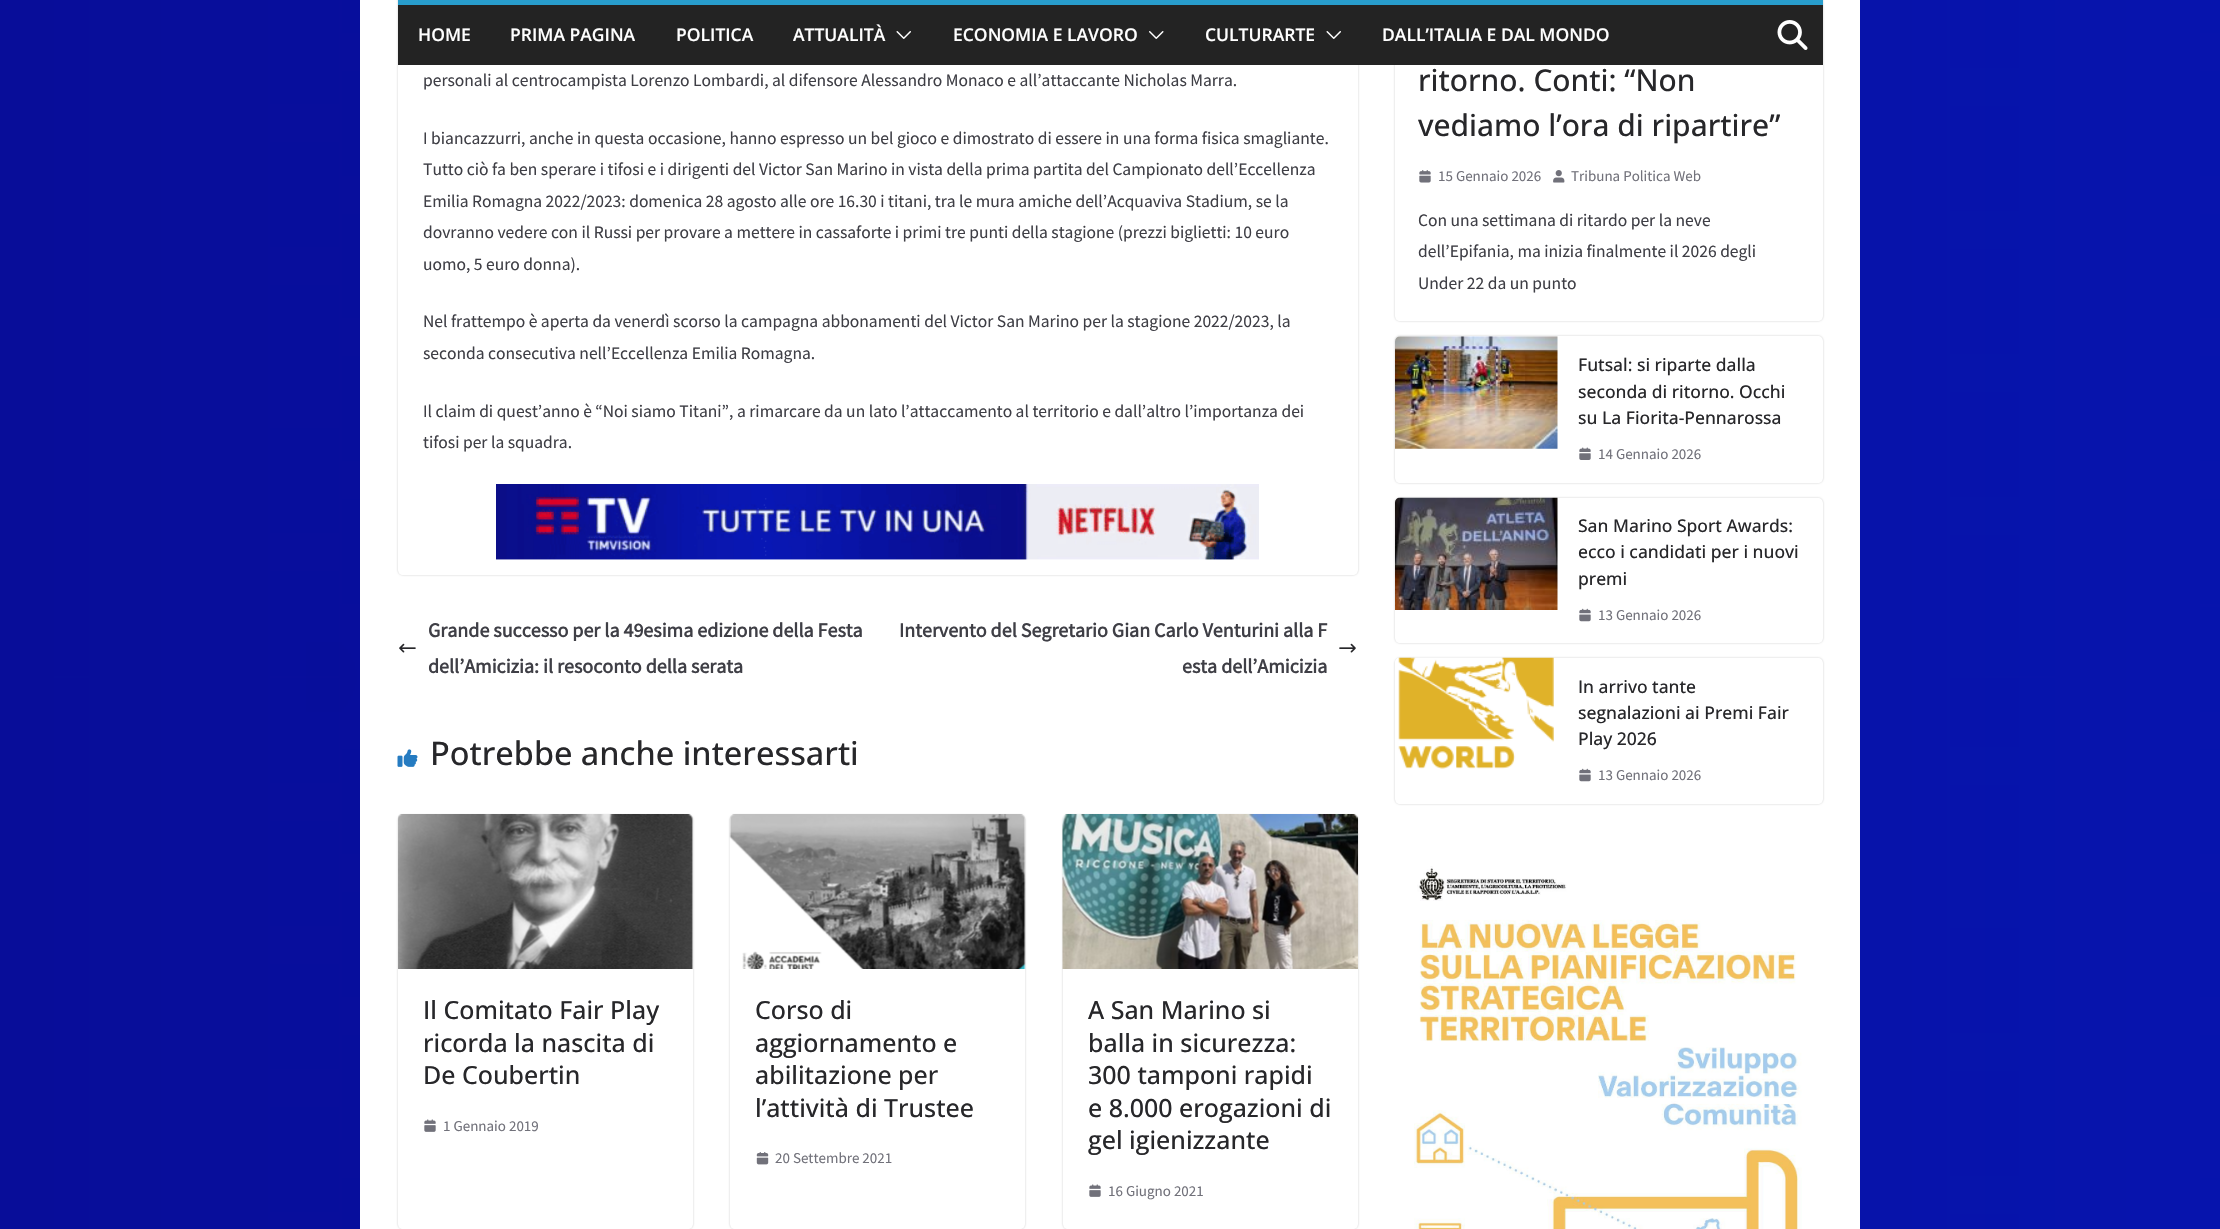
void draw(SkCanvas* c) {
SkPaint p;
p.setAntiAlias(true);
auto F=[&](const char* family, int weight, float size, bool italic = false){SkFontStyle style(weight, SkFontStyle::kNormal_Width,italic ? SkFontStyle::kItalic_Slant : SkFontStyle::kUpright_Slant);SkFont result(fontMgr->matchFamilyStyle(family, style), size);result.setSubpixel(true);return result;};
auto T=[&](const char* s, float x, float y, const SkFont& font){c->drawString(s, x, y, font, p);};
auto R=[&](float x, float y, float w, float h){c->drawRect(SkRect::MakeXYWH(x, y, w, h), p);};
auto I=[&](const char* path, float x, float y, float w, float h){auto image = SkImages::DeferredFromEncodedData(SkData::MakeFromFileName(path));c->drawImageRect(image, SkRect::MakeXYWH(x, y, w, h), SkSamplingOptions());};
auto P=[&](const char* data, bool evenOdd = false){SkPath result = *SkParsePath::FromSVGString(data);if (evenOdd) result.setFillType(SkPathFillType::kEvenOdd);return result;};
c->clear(0xffffffff);
I("1.png",0,0,2220,1229);
p.setColor(0xffffffff);
R(360,0,1500,1229);
c->save();
c->clipPath(P("M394 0h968v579h-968zm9-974h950c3 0 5 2 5 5v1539c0 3-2 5-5 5h-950c-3 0-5-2-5-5v-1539c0-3 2-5 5-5z",true),true);
p.setColor(0x3d000000);
p.setMaskFilter(SkMaskFilter::MakeBlur(kNormal_SkBlurStyle, 1));
c->drawRoundRect(SkRect::MakeXYWH(398,-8,960,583),5,5,p);
p.setMaskFilter(nullptr);
c->restore();
c->save();
c->clipPath(P("M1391 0h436v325h-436zm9-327h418c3 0 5 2 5 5v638c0 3-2 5-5 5h-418c-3 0-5-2-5-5v-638c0-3 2-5 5-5z",true),true);
p.setMaskFilter(SkMaskFilter::MakeBlur(kNormal_SkBlurStyle, 1));
c->drawRoundRect(SkRect::MakeXYWH(1395,-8,428,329),5,5,p);
p.setMaskFilter(nullptr);
c->restore();
p.setColor(0xff232323);
R(398,5,1425,60);
p.setColor(0xff289dcc);
R(398,0,1425,5);
auto f1 = F("Open Sans",600,17.5);
p.setColor(0xffffffff);
T("HOME",418,41,f1);
T("PRIMA PAGINA",510,41,f1);
T("POLITICA",676,41,f1);
T("ATTUALITÀ",793,41,f1);
I("2.png",896,31,15,8);
T("ECONOMIA E LAVORO",953,41,f1);
I("3.png",1149,31,15,8);
T("CULTURARTE",1205,41,f1);
I("2.png",1326,31,15,8);
T("DALL’ITALIA E DAL MONDO",1382,41,f1);
I("4.png",1777,20,31,30);
auto f2 = F("Source Sans Pro",400,17.5);
p.setColor(0xff3f3f46);
T("personali al centrocampista Lorenzo Lombardi, al difensore Alessandro Monaco e all’attaccante Nicholas Marra.",423,86,f2);
T("I biancazzurri, anche in questa occasione, hanno espresso un bel gioco e dimostrato di essere in una forma fisica smagliante.",423,144,f2);
T("Tutto ciò fa ben sperare i tifosi e i dirigenti del Victor San Marino in vista della prima partita del Campionato dell’Eccellenza",423,175,f2);
T("Emilia Romagna 2022/2023: domenica 28 agosto alle ore 16.30 i titani, tra le mura amiche dell’Acquaviva Stadium, se la",423,207,f2);
T("dovranno vedere con il Russi per provare a mettere in cassaforte i primi tre punti della stagione (prezzi biglietti: 10 euro",423,238,f2);
T("uomo, 5 euro donna).",423,270,f2);
T("Nel frattempo è aperta da venerdì scorso la campagna abbonamenti del Victor San Marino per la stagione 2022/2023, la",423,327,f2);
T("seconda consecutiva nell’Eccellenza Emilia Romagna.",423,359,f2);
T("Il claim di quest’anno è “Noi siamo Titani”, a rimarcare da un lato l’attaccamento al territorio e dall’altro l’importanza dei",423,417,f2);
T("tifosi per la squadra.",423,448,f2);
I("5.png",496,484,763,76);
auto f3 = F("Source Sans Pro",700,20);
T("Grande successo per la 49esima edizione della Festa",428,637,f3);
I("6.png",399,643,17,10);
T("dell’Amicizia: il resoconto della serata",428,673,f3);
T("Intervento del Segretario Gian Carlo Venturini alla F",899,637,f3);
I("7.png",1339,643,17,10);
T("esta dell’Amicizia",1182,673,f3);
I("8.png",397,749,21,18);
auto f4 = F("Open Sans",500,32.5);
p.setColor(0xff27272a);
T("Potrebbe anche interessarti",430,765,f4);
c->save();
c->clipPath(P("M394 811h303v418h-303zm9 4h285c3 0 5 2 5 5v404c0 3-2 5-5 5h-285c-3 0-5-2-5-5v-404c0-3 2-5 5-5z",true),true);
p.setColor(0x3d000000);
p.setMaskFilter(SkMaskFilter::MakeBlur(kNormal_SkBlurStyle, 1));
c->drawRoundRect(SkRect::MakeXYWH(398,815,295,414),5,5,p);
p.setMaskFilter(nullptr);
c->restore();
I("9.png",398,814,295,155);
auto f5 = F("Open Sans",500,25);
p.setColor(0xff27272a);
T("Il Comitato Fair Play",423,1019,f5);
T("ricorda la nascita di",423,1052,f5);
T("De Coubertin",423,1084,f5);
I("10.png",424,1119,12,13);
auto f6 = F("Source Sans Pro",400,15);
p.setColor(0xff71717a);
T("1 Gennaio 2019",443,1131,f6);
c->save();
c->clipPath(P("M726 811h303v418h-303zm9 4h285c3 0 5 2 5 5v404c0 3-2 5-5 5h-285c-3 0-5-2-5-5v-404c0-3 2-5 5-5z",true),true);
p.setColor(0x3d000000);
p.setMaskFilter(SkMaskFilter::MakeBlur(kNormal_SkBlurStyle, 1));
c->drawRoundRect(SkRect::MakeXYWH(730,815,295,414),5,5,p);
p.setMaskFilter(nullptr);
c->restore();
I("11.png",729,814,297,155);
p.setColor(0xff27272a);
T("Corso di",755,1019,f5);
T("aggiornamento e",755,1052,f5);
T("abilitazione per",755,1084,f5);
T("l’attività di Trustee",755,1117,f5);
I("12.png",756,1152,13,13);
p.setColor(0xff71717a);
T("20 Settembre 2021",775,1163,f6);
c->save();
c->clipPath(P("M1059 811h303v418h-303zm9 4h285c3 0 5 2 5 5v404c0 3-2 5-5 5h-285c-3 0-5-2-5-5v-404c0-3 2-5 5-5z",true),true);
p.setColor(0x3d000000);
p.setMaskFilter(SkMaskFilter::MakeBlur(kNormal_SkBlurStyle, 1));
c->drawRoundRect(SkRect::MakeXYWH(1063,815,295,414),5,5,p);
p.setMaskFilter(nullptr);
c->restore();
I("13.png",1062,814,296,155);
p.setColor(0xff27272a);
T("A San Marino si",1088,1019,f5);
T("balla in sicurezza:",1088,1052,f5);
T("300 tamponi rapidi",1088,1084,f5);
T("e 8.000 erogazioni di",1088,1117,f5);
T("gel igienizzante",1088,1149,f5);
I("10.png",1089,1184,12,13);
p.setColor(0xff71717a);
T("16 Giugno 2021",1108,1196,f6);
auto f7 = F("Open Sans",500,30);
p.setColor(0xff27272a);
T("ritorno. Conti: “Non",1418,91,f7);
T("vediamo l’ora di ripartire”",1418,136,f7);
I("14.png",1419,170,12,13);
p.setColor(0xff71717a);
T("15 Gennaio 2026",1438,181,f6);
I("15.png",1553,170,12,13);
T("Tribuna Politica Web",1571,181,f6);
p.setColor(0xff3f3f46);
T("Con una settimana di ritardo per la neve",1418,226,f2);
T("dell’Epifania, ma inizia finalmente il 2026 degli",1418,257,f2);
T("Under 22 da un punto",1418,289,f2);
c->save();
c->clipPath(P("M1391 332h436v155h-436zm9 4h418c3 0 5 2 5 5v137c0 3-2 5-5 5h-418c-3 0-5-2-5-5v-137c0-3 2-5 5-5z",true),true);
p.setColor(0x3d000000);
p.setMaskFilter(SkMaskFilter::MakeBlur(kNormal_SkBlurStyle, 1));
c->drawRoundRect(SkRect::MakeXYWH(1395,336,428,147),5,5,p);
p.setMaskFilter(nullptr);
c->restore();
I("16.png",1395,336,163,113);
auto f8 = F("Open Sans",500,17.5);
p.setColor(0xff27272a);
T("Futsal: si riparte dalla",1578,371,f8);
T("seconda di ritorno. Occhi",1578,398,f8);
T("su La Fiorita-Pennarossa",1578,424,f8);
I("17.png",1579,447,12,13);
p.setColor(0xff71717a);
T("14 Gennaio 2026",1598,459,f6);
c->save();
c->clipPath(P("M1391 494h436v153h-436zm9 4h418c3 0 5 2 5 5v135c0 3-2 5-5 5h-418c-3 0-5-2-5-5v-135c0-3 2-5 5-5z",true),true);
p.setColor(0x3d000000);
p.setMaskFilter(SkMaskFilter::MakeBlur(kNormal_SkBlurStyle, 1));
c->drawRoundRect(SkRect::MakeXYWH(1395,498,428,145),5,5,p);
p.setMaskFilter(nullptr);
c->restore();
I("18.png",1395,497,163,113);
p.setColor(0xff27272a);
T("San Marino Sport Awards:",1578,532,f8);
T("ecco i candidati per i nuovi",1578,558,f8);
T("premi",1578,585,f8);
I("19.png",1579,608,12,14);
p.setColor(0xff71717a);
T("13 Gennaio 2026",1598,620,f6);
c->save();
c->clipPath(P("M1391 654h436v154h-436zm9 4h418c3 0 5 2 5 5v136c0 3-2 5-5 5h-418c-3 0-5-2-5-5v-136c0-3 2-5 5-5z",true),true);
p.setColor(0x3d000000);
p.setMaskFilter(SkMaskFilter::MakeBlur(kNormal_SkBlurStyle, 1));
c->drawRoundRect(SkRect::MakeXYWH(1395,658,428,146),5,5,p);
p.setMaskFilter(nullptr);
c->restore();
I("20.png",1395,657,159,112);
p.setColor(0xff27272a);
T("In arrivo tante",1578,693,f8);
T("segnalazioni ai Premi Fair",1578,719,f8);
T("Play 2026",1578,745,f8);
I("19.png",1579,768,12,14);
p.setColor(0xff71717a);
T("13 Gennaio 2026",1598,780,f6);
I("21.png",1414,866,388,363);
}
